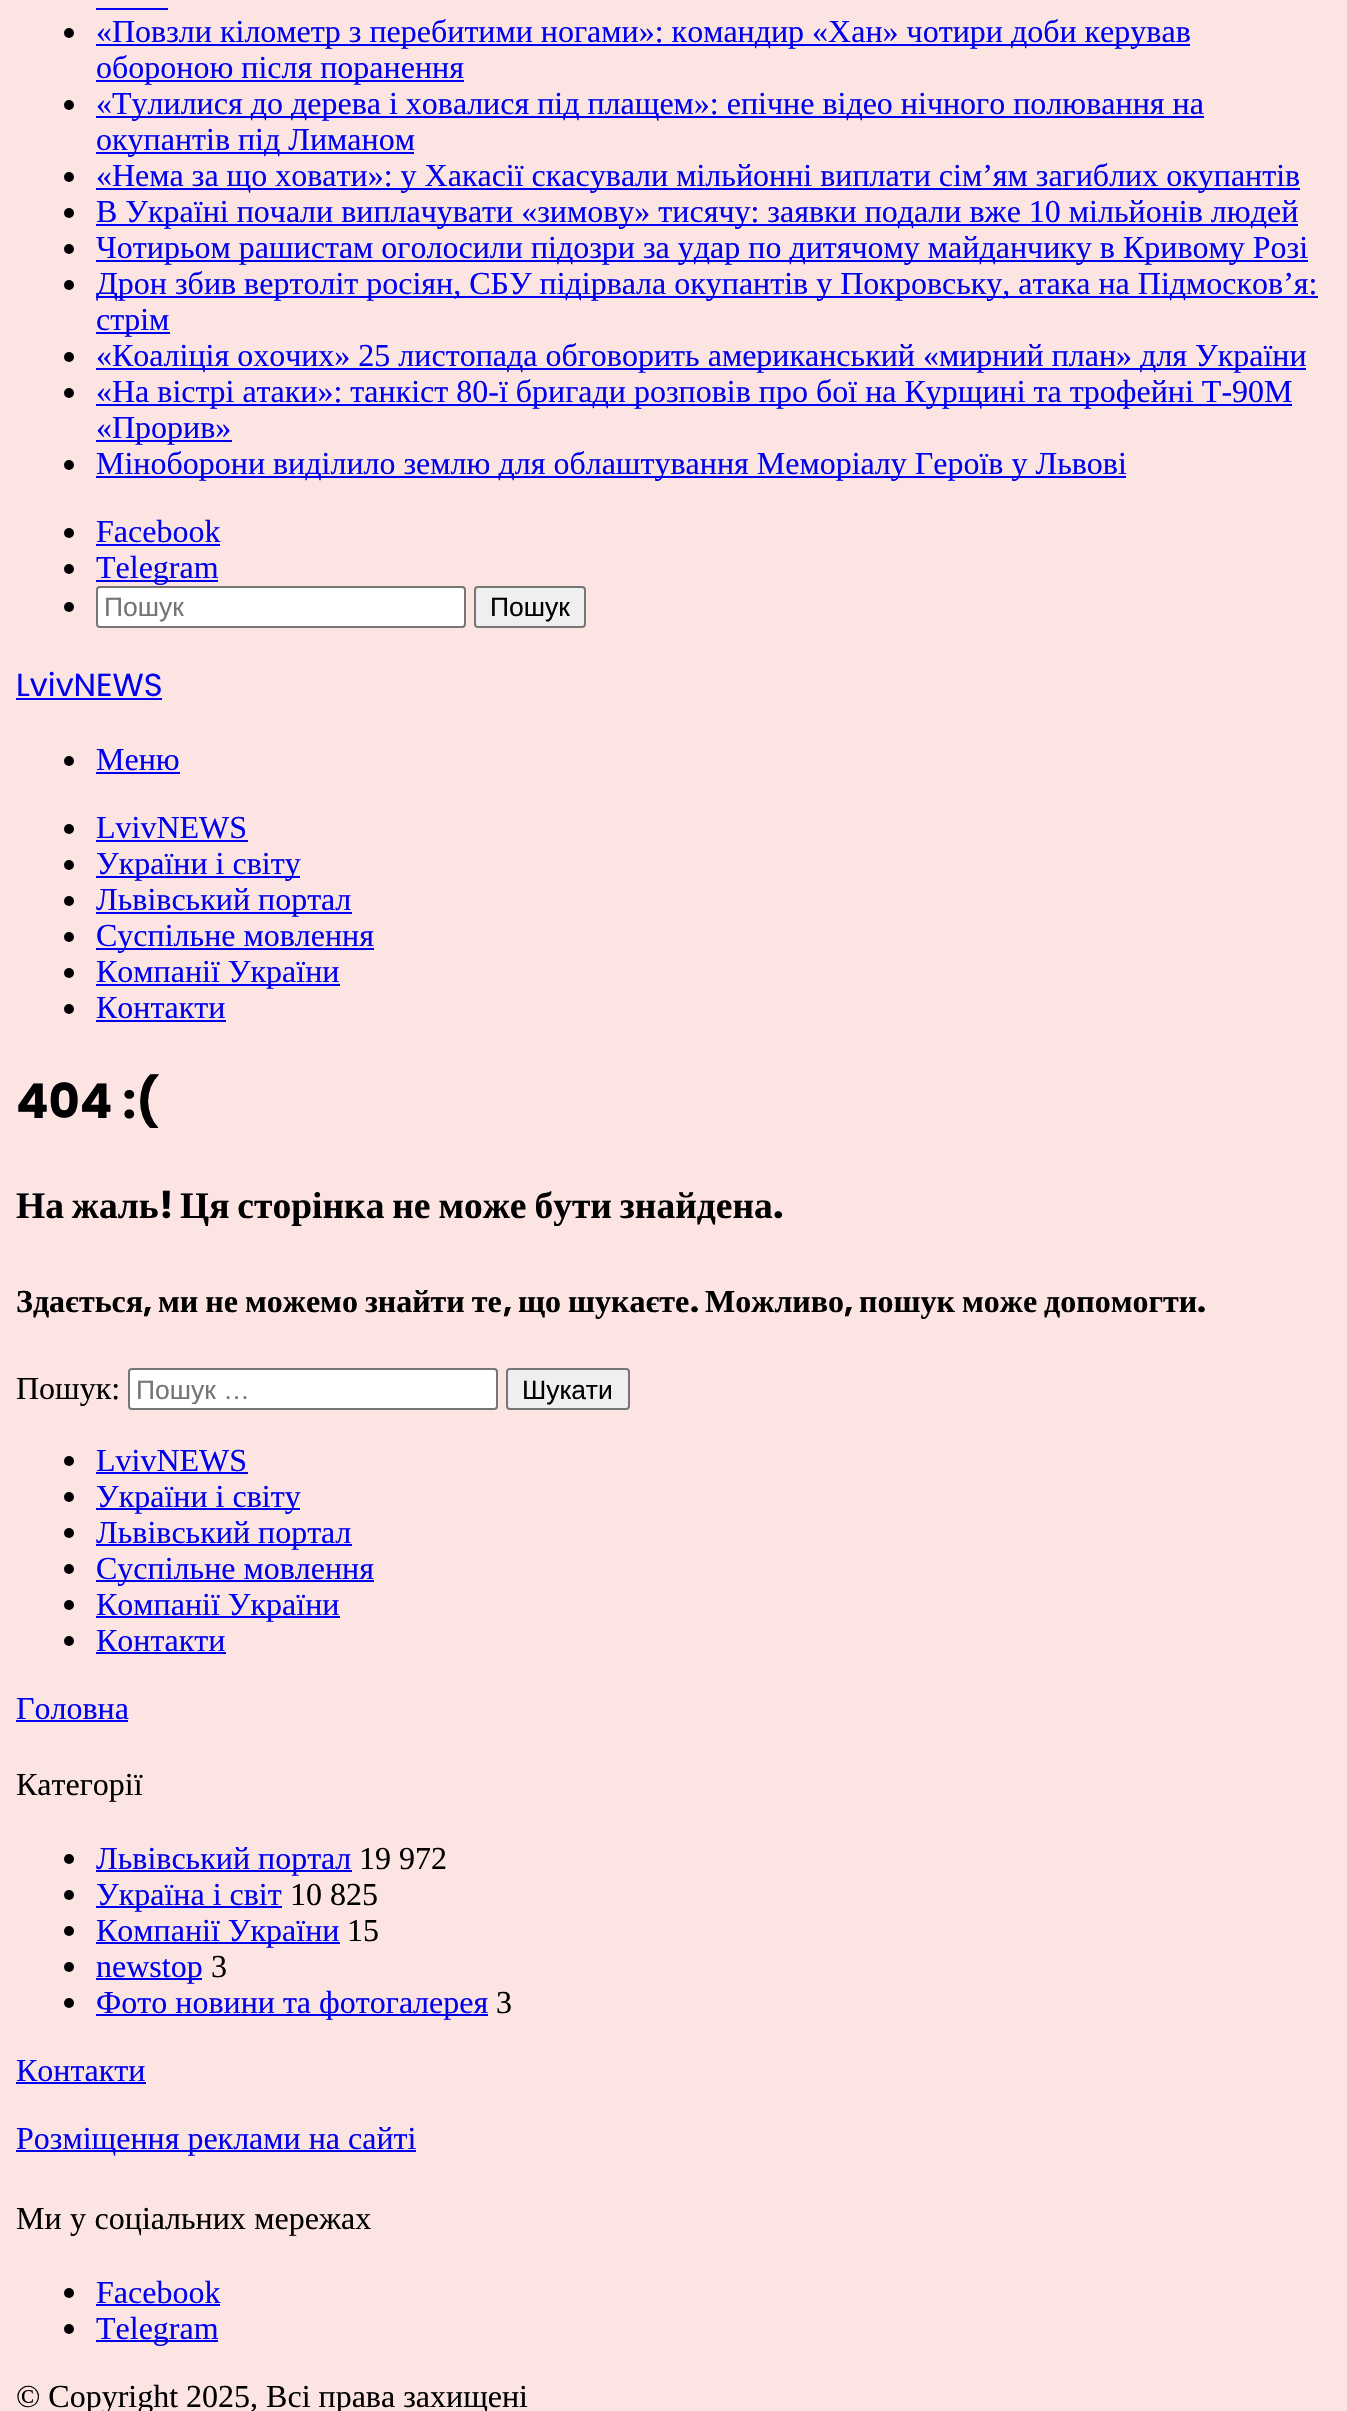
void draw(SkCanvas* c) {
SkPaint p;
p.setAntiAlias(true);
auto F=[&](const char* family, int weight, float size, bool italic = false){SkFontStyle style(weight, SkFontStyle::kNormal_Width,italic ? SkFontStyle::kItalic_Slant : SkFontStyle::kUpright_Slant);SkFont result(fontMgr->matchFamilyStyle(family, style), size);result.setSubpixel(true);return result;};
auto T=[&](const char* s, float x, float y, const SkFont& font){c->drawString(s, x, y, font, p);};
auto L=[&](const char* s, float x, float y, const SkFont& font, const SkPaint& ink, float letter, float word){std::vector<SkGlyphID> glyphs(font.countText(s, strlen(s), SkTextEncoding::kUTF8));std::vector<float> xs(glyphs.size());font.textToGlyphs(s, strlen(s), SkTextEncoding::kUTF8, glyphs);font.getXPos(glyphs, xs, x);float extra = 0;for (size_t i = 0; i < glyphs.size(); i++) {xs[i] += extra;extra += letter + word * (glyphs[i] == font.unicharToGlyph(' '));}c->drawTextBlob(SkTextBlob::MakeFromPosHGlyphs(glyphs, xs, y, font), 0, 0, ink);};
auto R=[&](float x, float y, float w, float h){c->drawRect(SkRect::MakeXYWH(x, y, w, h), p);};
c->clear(0xfffce4e3);
p.setColor(0xff0000ee);
R(96,8,72,2);
p.setColor(0xff000000);
c->drawCircle(69,33,5,p);
p.setColor(0xff0000ee);
R(96,44,1094,2);
auto f1 = F("Liberation Serif",400,32);
T("«Повзли кілометр з перебитими ногами»: командир «Хан» чотири доби керував",96,42,f1);
R(96,80,368,2);
T("обороною після поранення",96,78,f1);
p.setColor(0xff000000);
c->drawCircle(69,105,5,p);
p.setColor(0xff0000ee);
R(96,116,1108,2);
T("«Тулилися до дерева і ховалися під плащем»: епічне відео нічного полювання на",96,114,f1);
R(96,152,318,2);
T("окупантів під Лиманом",96,150,f1);
p.setColor(0xff000000);
c->drawCircle(69,177,5,p);
p.setColor(0xff0000ee);
R(96,188,1204,2);
T("«Нема за що ховати»: у Хакасії скасували мільйонні виплати сім’ям загиблих окупантів",96,186,f1);
p.setColor(0xff000000);
c->drawCircle(69,213,5,p);
p.setColor(0xff0000ee);
R(96,224,1202,2);
T("В Україні почали виплачувати «зимову» тисячу: заявки подали вже 10 мільйонів людей",96,222,f1);
p.setColor(0xff000000);
c->drawCircle(69,249,5,p);
p.setColor(0xff0000ee);
R(96,260,1212,2);
T("Чотирьом рашистам оголосили підозри за удар по дитячому майданчику в Кривому Розі",96,258,f1);
p.setColor(0xff000000);
c->drawCircle(69,285,5,p);
p.setColor(0xff0000ee);
R(96,296,1222,2);
T("Дрон збив вертоліт росіян, СБУ підірвала окупантів у Покровську, атака на Підмосков’я:",96,294,f1);
R(96,332,74,2);
T("стрім",96,330,f1);
p.setColor(0xff000000);
c->drawCircle(69,357,5,p);
p.setColor(0xff0000ee);
R(96,368,1210,2);
T("«Коаліція охочих» 25 листопада обговорить американський «мирний план» для України",96,366,f1);
p.setColor(0xff000000);
c->drawCircle(69,393,5,p);
p.setColor(0xff0000ee);
R(96,404,1196,2);
T("«На вістрі атаки»: танкіст 80-ї бригади розповів про бої на Курщині та трофейні Т-90М",96,402,f1);
R(96,440,136,2);
T("«Прорив»",96,438,f1);
p.setColor(0xff000000);
c->drawCircle(69,465,5,p);
p.setColor(0xff0000ee);
R(96,476,1030,2);
T("Міноборони виділило землю для облаштування Меморіалу Героїв у Львові",96,474,f1);
p.setColor(0xff000000);
c->drawCircle(69,533,5,p);
p.setColor(0xff0000ee);
T("Facebook",96,542,f1);
R(96,544,124,2);
p.setColor(0xff000000);
c->drawCircle(69,569,5,p);
p.setColor(0xff0000ee);
R(96,580,122,2);
T("Telegram",96,578,f1);
p.setColor(0xff000000);
c->drawCircle(69,607,5,p);
p.setColor(0xffffffff);
c->drawRoundRect(SkRect::MakeXYWH(97,587,368,40),3,3,p);
p.setStroke(true);
p.setStrokeWidth(2);
p.setColor(0xff767676);
c->drawRoundRect(SkRect::MakeXYWH(97,587,368,40),3,3,p);
auto f2 = F("Liberation Sans",400,26.5);
p.setStroke(false);
p.setColor(0xff757575);
T("Пошук",104,616,f2);
p.setColor(0xffefefef);
c->drawRoundRect(SkRect::MakeXYWH(475,587,110,40),3,3,p);
p.setStroke(true);
p.setColor(0xff767676);
c->drawRoundRect(SkRect::MakeXYWH(475,587,110,40),3,3,p);
p.setStroke(false);
p.setColor(0xff000000);
T("Пошук",490,616,f2);
auto f3 = F("Poppins",400,32);
p.setColor(0xff0000ee);
T("LvivNEWS",16,696,f3);
R(16,698,146,2);
p.setColor(0xff000000);
c->drawCircle(69,761,5,p);
p.setColor(0xff0000ee);
T("Меню",96,770,f1);
R(96,772,84,2);
p.setColor(0xff000000);
c->drawCircle(69,829,5,p);
p.setColor(0xff0000ee);
T("LvivNEWS",96,838,f1);
R(96,840,152,2);
p.setColor(0xff000000);
c->drawCircle(69,865,5,p);
p.setColor(0xff0000ee);
R(96,876,204,2);
T("України і світу",96,874,f1);
p.setColor(0xff000000);
c->drawCircle(69,901,5,p);
p.setColor(0xff0000ee);
R(96,912,256,2);
T("Львівський портал",96,910,f1);
p.setColor(0xff000000);
c->drawCircle(69,937,5,p);
p.setColor(0xff0000ee);
R(96,948,278,2);
T("Суспільне мовлення",96,946,f1);
p.setColor(0xff000000);
c->drawCircle(69,973,5,p);
p.setColor(0xff0000ee);
R(96,984,244,2);
T("Компанії України",96,982,f1);
p.setColor(0xff000000);
c->drawCircle(69,1009,5,p);
p.setColor(0xff0000ee);
T("Контакти",96,1018,f1);
R(96,1020,130,2);
auto f4 = F("Poppins",700,48);
p.setColor(0xff000000);
T("404 :(",16,1118,f4);
auto f5 = F("Liberation Serif",700,37.5);
L("На жаль",16,1218,f5,p,0,-1.5);
auto f6 = F("Poppins",700,37.5);
T("!",159,1218,f6);
L("Ця сторінка не може бути знайдена",180,1218,f5,p,0,-1.5);
T(".",773,1218,f6);
auto f7 = F("Liberation Serif",700,32);
T("Здається",16,1312,f7);
auto f8 = F("Poppins",700,32);
T(",",143,1312,f8);
L("ми не можемо знайти те",158,1312,f7,p,0,-1);
T(",",503,1312,f8);
L("що шукаєте",518,1312,f7,p,0,-1);
T(".",690,1312,f8);
T("Можливо",705,1312,f7);
T(",",844,1312,f8);
L("пошук може допомогти",859,1312,f7,p,0,-1);
T(".",1197,1312,f8);
T("Пошук:",16,1399,f1);
p.setColor(0xffffffff);
c->drawRoundRect(SkRect::MakeXYWH(129,1369,368,40),3,3,p);
p.setStroke(true);
p.setColor(0xff767676);
c->drawRoundRect(SkRect::MakeXYWH(129,1369,368,40),3,3,p);
c->save();
c->clipRect(SkRect::MakeXYWH(136,1374,328,30));
p.setStroke(false);
p.setColor(0xff757575);
T("Пошук …",136,1399,f2);
c->restore();
p.setColor(0xffefefef);
c->drawRoundRect(SkRect::MakeXYWH(507,1369,122,40),3,3,p);
p.setStroke(true);
p.setColor(0xff767676);
c->drawRoundRect(SkRect::MakeXYWH(507,1369,122,40),3,3,p);
p.setStroke(false);
p.setColor(0xff000000);
T("Шукати",522,1399,f2);
c->drawCircle(69,1461,5,p);
p.setColor(0xff0000ee);
T("LvivNEWS",96,1471,f1);
R(96,1472,152,2);
p.setColor(0xff000000);
c->drawCircle(69,1497,5,p);
p.setColor(0xff0000ee);
R(96,1508,204,2);
T("України і світу",96,1507,f1);
p.setColor(0xff000000);
c->drawCircle(69,1533,5,p);
p.setColor(0xff0000ee);
R(96,1544,256,2);
T("Львівський портал",96,1543,f1);
p.setColor(0xff000000);
c->drawCircle(69,1569,5,p);
p.setColor(0xff0000ee);
R(96,1580,278,2);
T("Суспільне мовлення",96,1579,f1);
p.setColor(0xff000000);
c->drawCircle(69,1605,5,p);
p.setColor(0xff0000ee);
R(96,1616,244,2);
T("Компанії України",96,1615,f1);
p.setColor(0xff000000);
c->drawCircle(69,1641,5,p);
p.setColor(0xff0000ee);
T("Контакти",96,1651,f1);
R(96,1652,130,2);
T("Головна",16,1719,f1);
R(16,1720,112,2);
p.setColor(0xff000000);
T("Категорії",16,1795,f1);
c->drawCircle(69,1859,5,p);
p.setColor(0xff0000ee);
R(96,1870,256,2);
T("Львівський портал",96,1869,f1);
p.setColor(0xff000000);
T("19 972",359,1869,f1);
c->drawCircle(69,1895,5,p);
p.setColor(0xff0000ee);
R(96,1906,186,2);
T("Україна і світ",96,1905,f1);
p.setColor(0xff000000);
T("10 825",290,1905,f1);
c->drawCircle(69,1931,5,p);
p.setColor(0xff0000ee);
R(96,1942,244,2);
T("Компанії України",96,1941,f1);
p.setColor(0xff000000);
T("15",347,1941,f1);
c->drawCircle(69,1967,5,p);
p.setColor(0xff0000ee);
R(96,1978,106,2);
T("newstop",96,1977,f1);
p.setColor(0xff000000);
T("3",211,1977,f1);
c->drawCircle(69,2003,5,p);
p.setColor(0xff0000ee);
R(96,2014,392,2);
T("Фото новини та фотогалерея",96,2013,f1);
p.setColor(0xff000000);
T("3",496,2013,f1);
p.setColor(0xff0000ee);
T("Контакти",16,2081,f1);
R(16,2082,130,2);
R(16,2150,400,2);
T("Розміщення реклами на сайті",16,2149,f1);
p.setColor(0xff000000);
L("Ми у соціальних мережах",16,2229,f1,p,0,.5);
c->drawCircle(69,2293,5,p);
p.setColor(0xff0000ee);
T("Facebook",96,2303,f1);
R(96,2304,124,2);
p.setColor(0xff000000);
c->drawCircle(69,2329,5,p);
p.setColor(0xff0000ee);
R(96,2340,122,2);
T("Telegram",96,2339,f1);
p.setColor(0xff000000);
T("© Copyright 2025, Всі права захищені",16,2407,f1);
}
